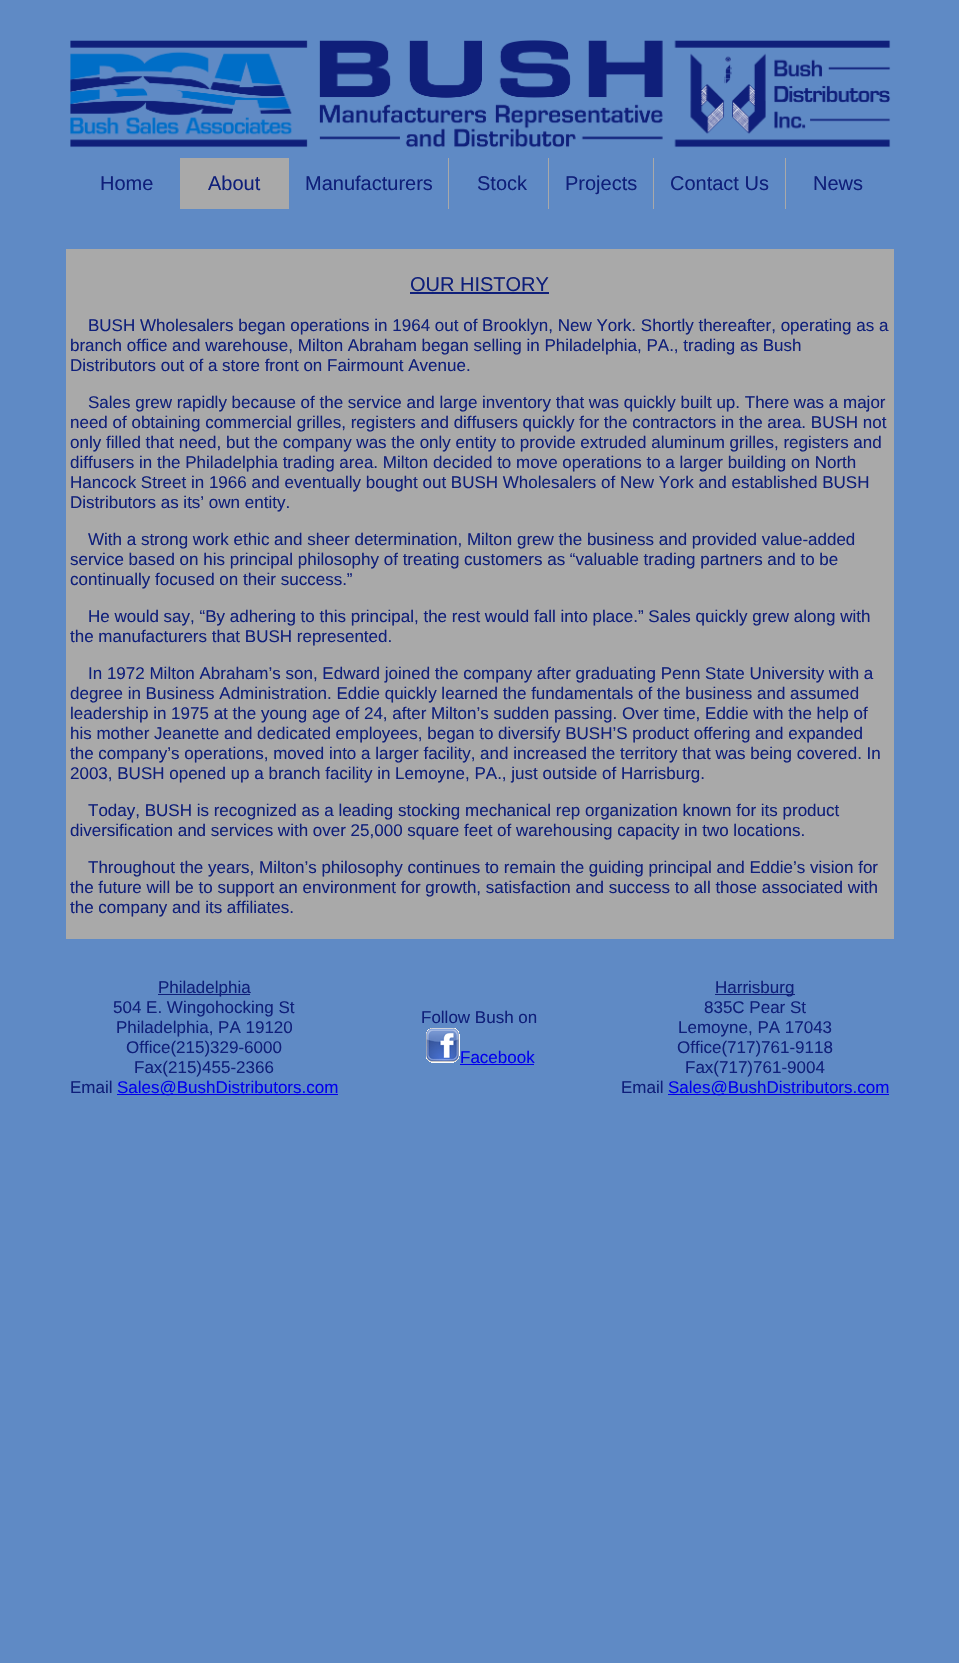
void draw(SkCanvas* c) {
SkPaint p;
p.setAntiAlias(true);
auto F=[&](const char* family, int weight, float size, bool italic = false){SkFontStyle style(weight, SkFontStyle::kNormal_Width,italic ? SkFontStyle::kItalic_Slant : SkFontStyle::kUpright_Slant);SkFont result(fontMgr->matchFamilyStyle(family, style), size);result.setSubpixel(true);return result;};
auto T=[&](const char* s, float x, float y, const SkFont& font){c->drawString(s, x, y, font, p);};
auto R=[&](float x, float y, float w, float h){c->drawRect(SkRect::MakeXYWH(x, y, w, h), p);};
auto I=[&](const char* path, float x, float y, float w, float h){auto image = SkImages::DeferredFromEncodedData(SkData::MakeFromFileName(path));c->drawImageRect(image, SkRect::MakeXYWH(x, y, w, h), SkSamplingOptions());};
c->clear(0xff5f8ac5);
I("1.png",70,40,821,108);
p.setColor(0xffa9a9a9);
R(180,158,1,51);
auto f1 = F("Liberation Sans",400,20);
p.setColor(0xff0f1f7a);
T("Home",100,190,f1);
p.setColor(0xffa9a9a9);
R(181,158,108,51);
p.setColor(0xff0f1f7a);
T("About",208,190,f1);
p.setColor(0xffa9a9a9);
R(448,158,1,51);
p.setColor(0xff0f1f7a);
T("Manufacturers",305,190,f1);
p.setColor(0xffa9a9a9);
R(548,158,1,51);
p.setColor(0xff0f1f7a);
T("Stock",477,190,f1);
p.setColor(0xffa9a9a9);
R(653,158,1,51);
p.setColor(0xff0f1f7a);
T("Projects",565,190,f1);
p.setColor(0xffa9a9a9);
R(785,158,1,51);
p.setColor(0xff0f1f7a);
T("Contact Us",670,190,f1);
T("News",813,190,f1);
p.setColor(0xffa9a9a9);
R(66,249,828,690);
p.setColor(0xff0f1f7a);
T("OUR HISTORY",410,291,f1);
R(410,292,139,2);
auto f2 = F("Liberation Sans",400,17);
T("BUSH Wholesalers began operations in 1964 out of Brooklyn, New York. Shortly thereafter, operating as a",88,331,f2);
T("branch office and warehouse, Milton Abraham began selling in Philadelphia, PA., trading as Bush",70,351,f2);
T("Distributors out of a store front on Fairmount Avenue.",70,371,f2);
T("Sales grew rapidly because of the service and large inventory that was quickly built up. There was a major",88,408,f2);
T("need of obtaining commercial grilles, registers and diffusers quickly for the contractors in the area. BUSH not",70,428,f2);
T("only filled that need, but the company was the only entity to provide extruded aluminum grilles, registers and",70,448,f2);
T("diffusers in the Philadelphia trading area. Milton decided to move operations to a larger building on North",70,468,f2);
T("Hancock Street in 1966 and eventually bought out BUSH Wholesalers of New York and established BUSH",70,488,f2);
T("Distributors as its’ own entity.",70,508,f2);
T("With a strong work ethic and sheer determination, Milton grew the business and provided value-added",88,545,f2);
T("service based on his principal philosophy of treating customers as “valuable trading partners and to be",70,565,f2);
T("continually focused on their success.”",70,585,f2);
T("He would say, “By adhering to this principal, the rest would fall into place.” Sales quickly grew along with",88,622,f2);
T("the manufacturers that BUSH represented.",70,642,f2);
T("In 1972 Milton Abraham’s son, Edward joined the company after graduating Penn State University with a",88,679,f2);
T("degree in Business Administration. Eddie quickly learned the fundamentals of the business and assumed",70,699,f2);
T("leadership in 1975 at the young age of 24, after Milton’s sudden passing. Over time, Eddie with the help of",70,719,f2);
T("his mother Jeanette and dedicated employees, began to diversify BUSH’S product offering and expanded",70,739,f2);
T("the company’s operations, moved into a larger facility, and increased the territory that was being covered. In",70,759,f2);
T("2003, BUSH opened up a branch facility in Lemoyne, PA., just outside of Harrisburg.",70,779,f2);
T("Today, BUSH is recognized as a leading stocking mechanical rep organization known for its product",88,816,f2);
T("diversification and services with over 25,000 square feet of warehousing capacity in two locations.",70,836,f2);
T("Throughout the years, Milton’s philosophy continues to remain the guiding principal and Eddie’s vision for",88,873,f2);
T("the future will be to support an environment for growth, satisfaction and success to all those associated with",70,893,f2);
T("the company and its affiliates.",70,913,f2);
R(158,994,92,1);
T("Philadelphia",158,993,f2);
T("504 E. Wingohocking St",113,1013,f2);
T("Philadelphia, PA 19120",116,1033,f2);
T("Office(215)329-6000",126,1053,f2);
T("Fax(215)455-2366",134,1073,f2);
T("Email",70,1093,f2);
p.setColor(0xff0000ee);
R(117,1094,221,1);
T("Sales@BushDistributors.com",117,1093,f2);
p.setColor(0xff0f1f7a);
T("Follow Bush on",421,1023,f2);
I("2.png",426,1028,34,35);
p.setColor(0xff0000ee);
T("Facebook",460,1063,f2);
R(460,1064,74,1);
p.setColor(0xff0f1f7a);
R(715,994,80,1);
T("Harrisburg",715,993,f2);
T("835C Pear St",704,1013,f2);
T("Lemoyne, PA 17043",678,1033,f2);
T("Office(717)761-9118",677,1053,f2);
T("Fax(717)761-9004",685,1073,f2);
T("Email",621,1093,f2);
p.setColor(0xff0000ee);
R(668,1094,221,1);
T("Sales@BushDistributors.com",668,1093,f2);
}
